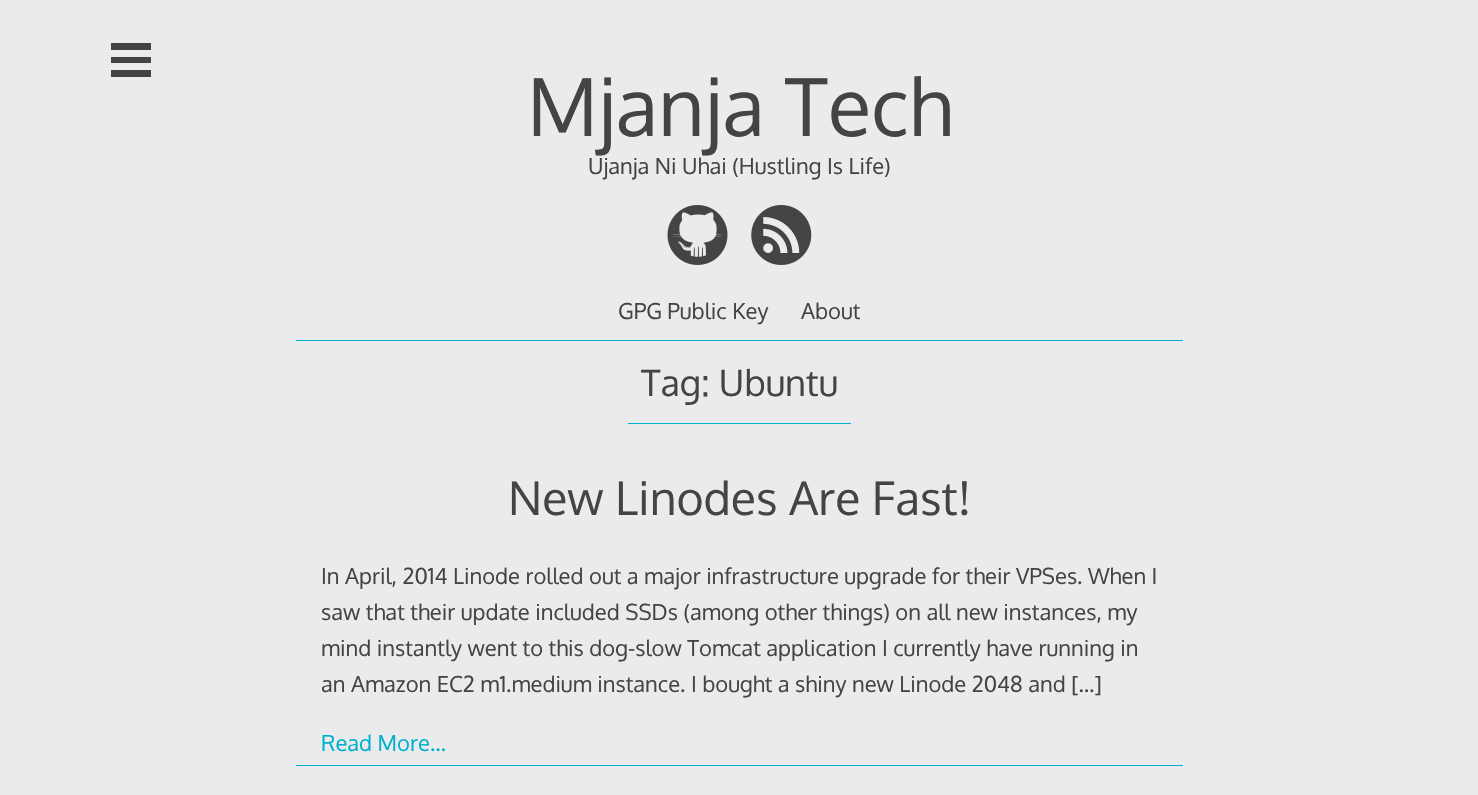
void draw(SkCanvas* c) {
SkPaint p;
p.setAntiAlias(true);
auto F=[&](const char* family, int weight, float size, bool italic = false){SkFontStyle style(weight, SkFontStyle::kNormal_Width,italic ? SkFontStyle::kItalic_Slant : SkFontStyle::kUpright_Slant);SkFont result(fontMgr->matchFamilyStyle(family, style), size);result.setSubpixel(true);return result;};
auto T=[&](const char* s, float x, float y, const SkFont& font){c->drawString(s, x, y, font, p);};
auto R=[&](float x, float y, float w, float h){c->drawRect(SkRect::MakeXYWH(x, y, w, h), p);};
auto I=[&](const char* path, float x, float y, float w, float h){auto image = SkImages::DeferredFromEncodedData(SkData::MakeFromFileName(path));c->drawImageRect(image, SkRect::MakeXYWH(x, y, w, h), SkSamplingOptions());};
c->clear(0xffe9ebed);
p.setColor(0xff444444);
R(111,43,40,7);
R(111,57,40,6);
R(111,70,40,7);
p.setColor(0xff00b0cc);
R(296,340,887,1);
auto f1 = F("Oxygen",400,80);
p.setColor(0xff444444);
T("Mjanja Tech",527,136,f1);
auto f2 = F("Oxygen",400,22);
T("Ujanja Ni Uhai (Hustling Is Life)",588,174,f2);
I("1.png",667,205,61,60);
I("2.png",751,205,61,60);
T("GPG Public Key",618,319,f2);
T("About",801,319,f2);
p.setColor(0xff00b0cc);
R(628,423,223,1);
auto f3 = F("Oxygen",400,36.25);
p.setColor(0xff444444);
T("Tag: Ubuntu",641,396,f3);
auto f4 = F("Oxygen",400,46.25);
T("New Linodes Are Fast!",508,515,f4);
T("In April, 2014 Linode rolled out a major infrastructure upgrade for their VPSes. When I",321,584,f2);
T("saw that their update included SSDs (among other things) on all new instances, my",321,620,f2);
T("mind instantly went to this dog-slow Tomcat application I currently have running in",321,656,f2);
T("an Amazon EC2 m1.medium instance. I bought a shiny new Linode 2048 and […]",321,692,f2);
p.setColor(0xff00b0cc);
R(296,765,887,1);
T("Read More…",321,751,f2);
}
